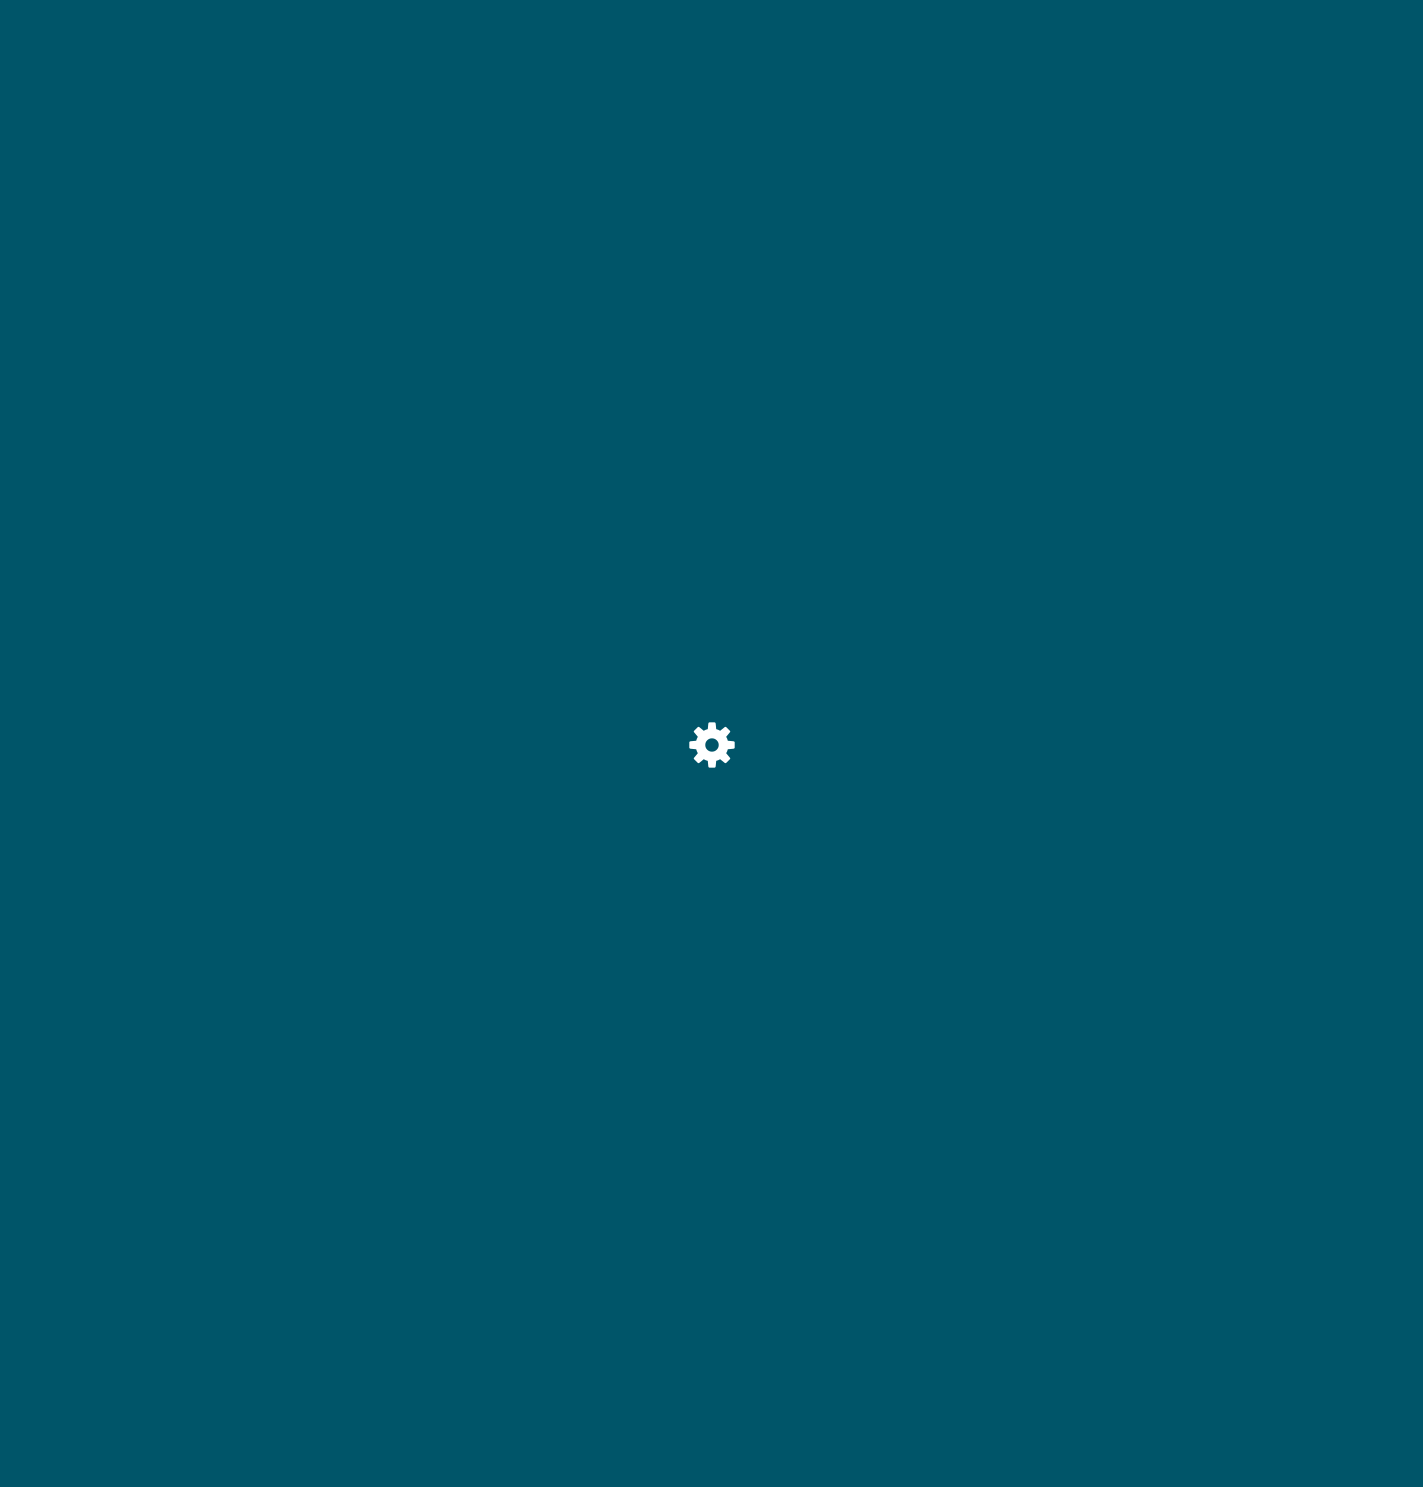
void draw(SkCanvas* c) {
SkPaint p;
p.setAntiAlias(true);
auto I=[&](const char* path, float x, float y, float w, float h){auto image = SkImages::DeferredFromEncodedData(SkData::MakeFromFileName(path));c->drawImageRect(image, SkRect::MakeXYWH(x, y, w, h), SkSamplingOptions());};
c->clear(0xff005569);
I("1.png",689,722,46,46);
}
